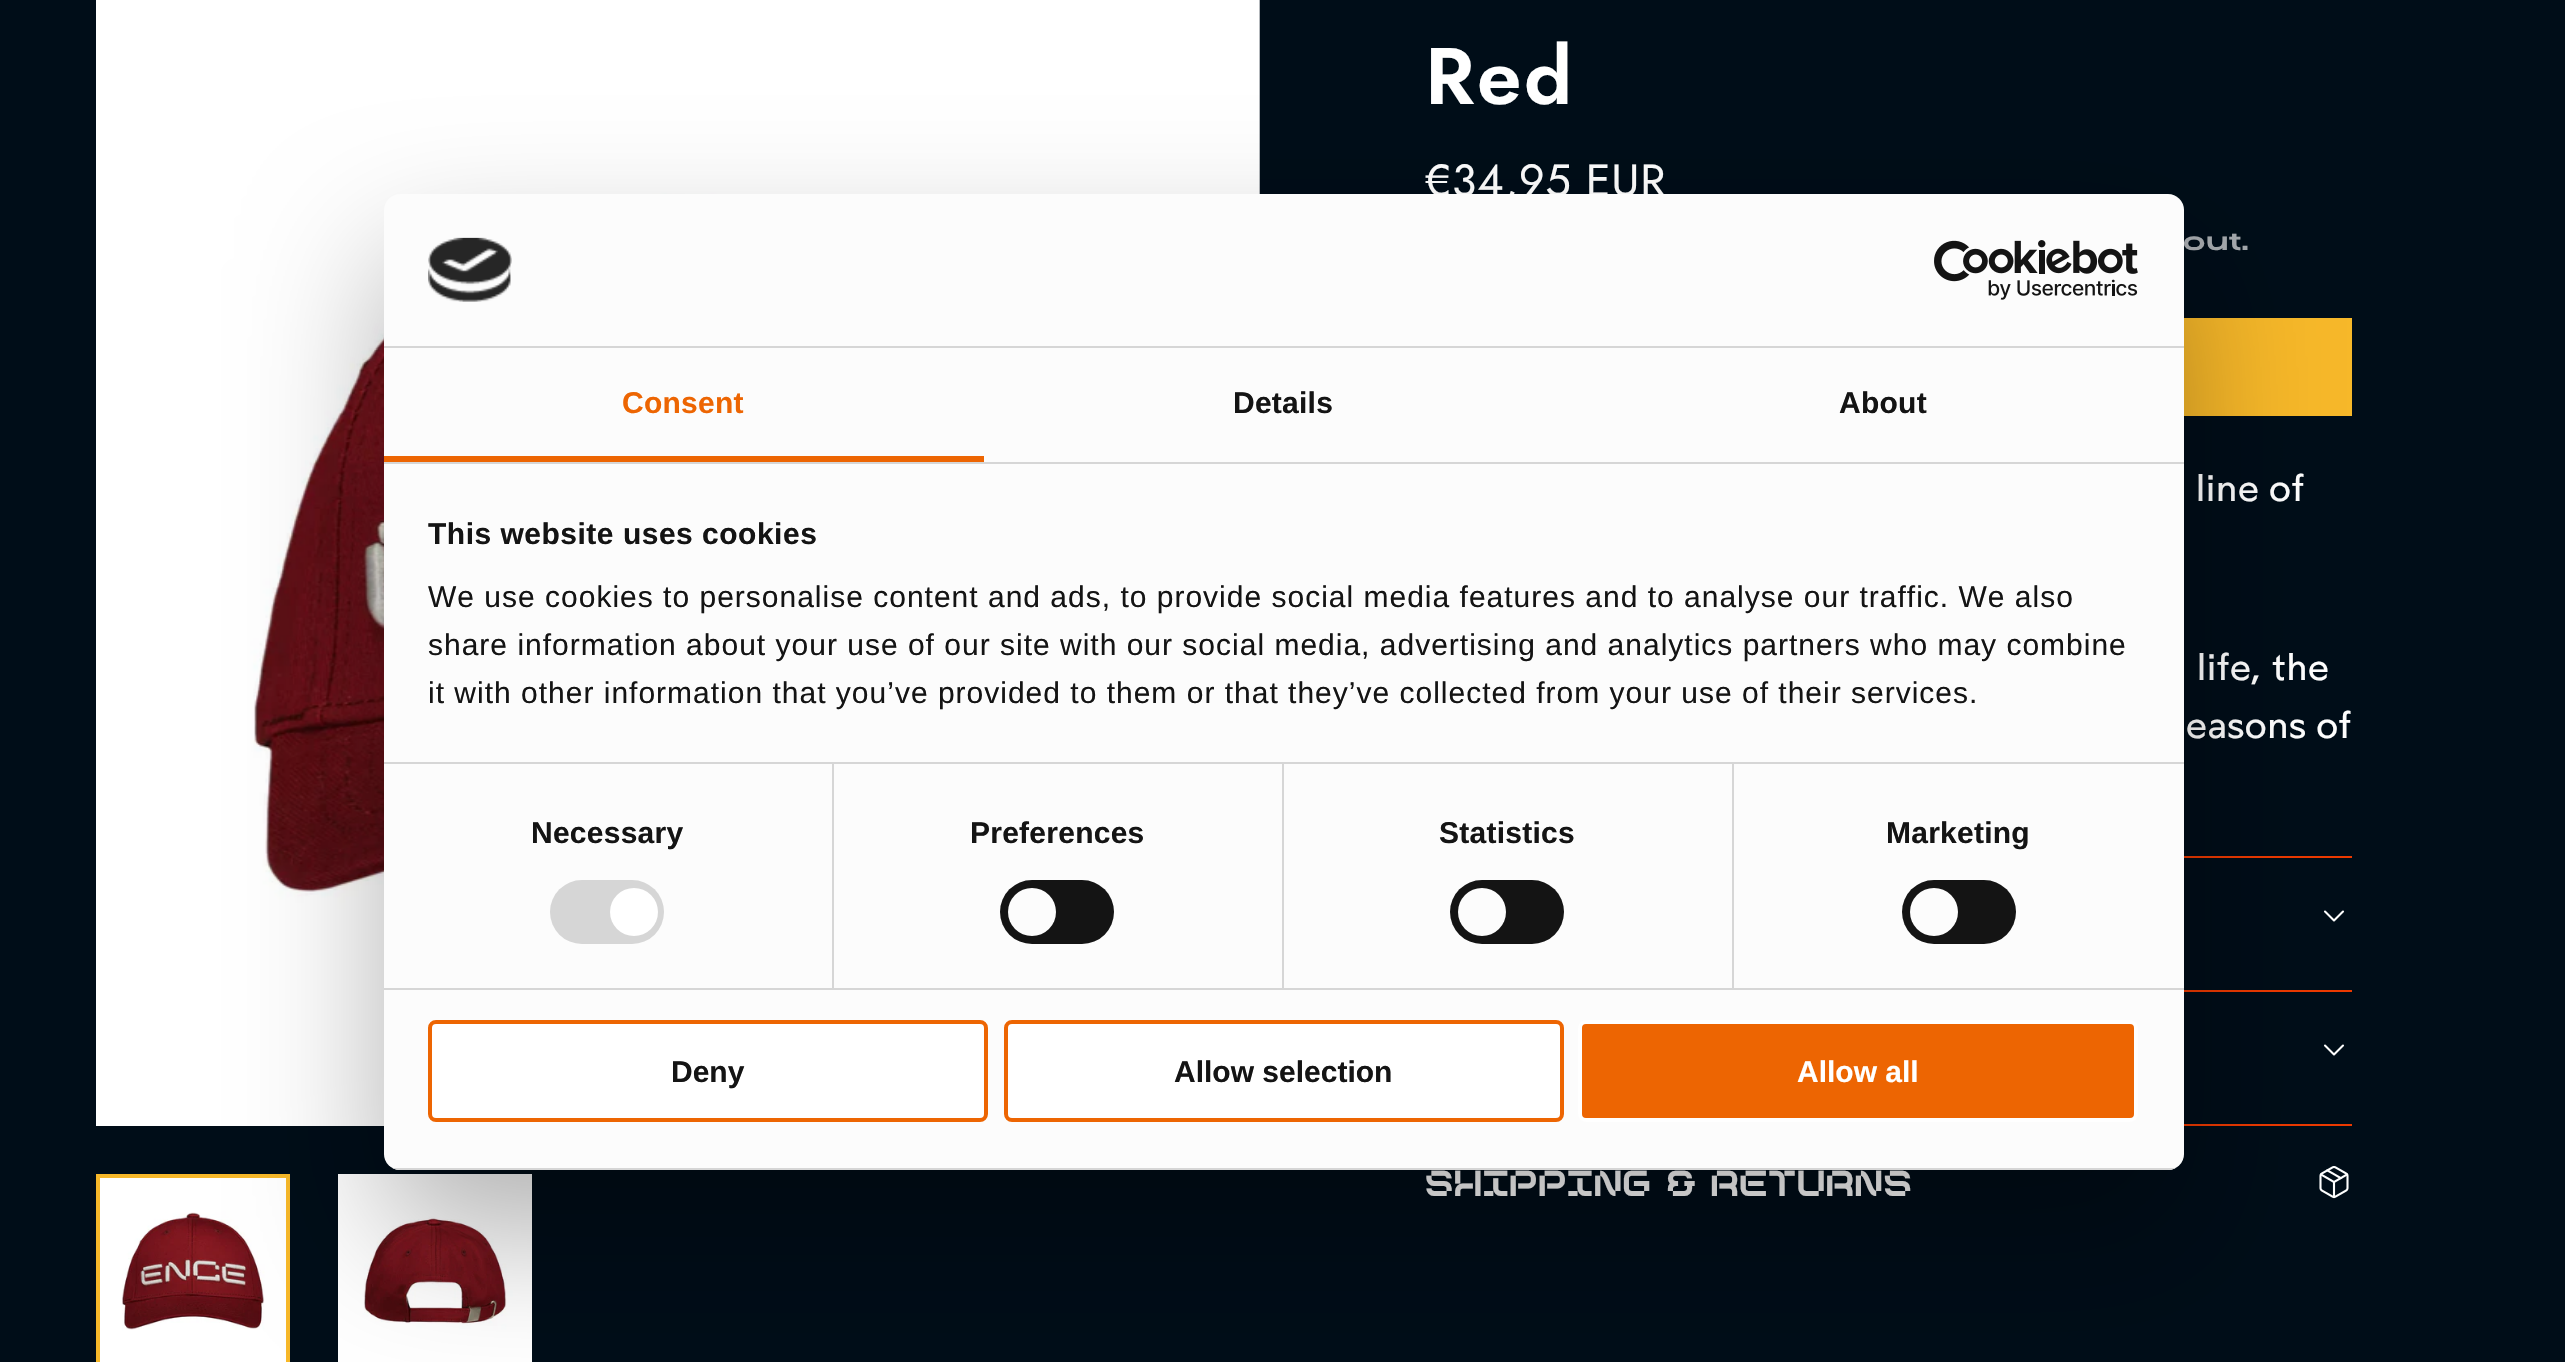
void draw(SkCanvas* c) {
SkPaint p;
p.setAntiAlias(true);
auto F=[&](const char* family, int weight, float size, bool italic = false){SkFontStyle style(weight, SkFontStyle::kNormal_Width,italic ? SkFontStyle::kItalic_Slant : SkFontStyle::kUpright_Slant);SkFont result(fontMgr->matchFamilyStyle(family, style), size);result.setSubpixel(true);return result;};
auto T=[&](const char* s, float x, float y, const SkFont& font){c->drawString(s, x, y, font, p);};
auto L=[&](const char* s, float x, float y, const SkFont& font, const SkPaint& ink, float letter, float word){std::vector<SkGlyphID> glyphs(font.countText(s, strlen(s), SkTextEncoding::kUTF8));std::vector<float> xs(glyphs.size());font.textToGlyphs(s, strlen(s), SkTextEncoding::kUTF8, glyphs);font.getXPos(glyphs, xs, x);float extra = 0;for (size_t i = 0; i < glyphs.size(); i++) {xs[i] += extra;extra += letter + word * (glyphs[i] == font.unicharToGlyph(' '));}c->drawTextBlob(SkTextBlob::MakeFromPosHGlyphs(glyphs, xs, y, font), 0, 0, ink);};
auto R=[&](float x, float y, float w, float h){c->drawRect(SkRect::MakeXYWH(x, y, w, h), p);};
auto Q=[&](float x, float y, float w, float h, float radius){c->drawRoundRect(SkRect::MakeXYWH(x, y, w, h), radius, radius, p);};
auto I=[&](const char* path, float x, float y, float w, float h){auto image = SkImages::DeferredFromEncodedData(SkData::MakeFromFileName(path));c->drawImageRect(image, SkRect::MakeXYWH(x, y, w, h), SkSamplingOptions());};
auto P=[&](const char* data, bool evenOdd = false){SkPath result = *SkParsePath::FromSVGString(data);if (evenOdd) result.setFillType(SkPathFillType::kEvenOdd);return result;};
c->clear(0xff000d18);
I("1.png",96,0,1164,1126);
I("2.png",100,1178,186,184);
p.setStroke(true);
p.setStrokeWidth(4);
p.setColor(0xfff7b829);
c->drawRect(SkRect::MakeXYWH(98,1176,190,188),p);
I("3.png",338,1174,194,188);
auto f1 = F("Jost",600,80);
p.setStroke(false);
p.setColor(0xffffffff);
L("Red",1425,104,f1,p,2.5,0);
auto f2 = F("Jost",400,45);
L("€34,95 EUR",1425,196,f2,p,.75,0);
auto f3 = F("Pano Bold",700,23.5);
p.setColor(0xffa6aaae);
L("out.",2183,250,f3,p,.75,0);
p.setColor(0xfff7b829);
R(2184,318,168,98);
auto f4 = F("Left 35",400,36);
p.setColor(0xffffffff);
L("line of",2196,501,f4,p,.75,0);
L("life, the",2197,680,f4,p,.75,0);
L("easons of",2186,738,f4,p,.75,0);
p.setColor(0xffec3900);
R(2184,856,168,2);
p.setStroke(true);
p.setStrokeWidth(2.1);
p.setStrokeCap(SkPaint::kRound_Cap);
p.setStrokeJoin(SkPaint::kRound_Join);
p.setColor(0xffffffff);
c->drawPath(P("M2325 911.5l9 9l9-9"),p);
p.setStroke(false);
p.setColor(0xffec3900);
R(2184,990,168,2);
p.setStroke(true);
p.setColor(0xffffffff);
c->drawPath(P("M2325 1045.5l9 9l9-9"),p);
p.setStroke(false);
p.setColor(0xffec3900);
R(2184,1124,168,2);
auto f5 = F("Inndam",700,36);
p.setColor(0xffffffff);
L("Shipping & Returns",1425,1196,f5,p,.75,0);
I("4.png",2319,1166,30,33);
p.setColor(0x4d000000);
p.setMaskFilter(SkMaskFilter::MakeBlur(kNormal_SkBlurStyle, 68));
c->drawRoundRect(SkRect::MakeXYWH(384,258,1800,976),16,16,p);
p.setMaskFilter(nullptr);
p.setColor(0xfffcfcfc);
Q(384,194,1800,976,16);
p.setColor(0xffd6d6d6);
R(384,346,1800,2);
I("5.png",428,237,84,65);
I("6.png",1934,240,204,60);
R(384,462,1800,2);
p.setColor(0xffed6502);
R(384,456,600,6);
auto f6 = F("Liberation Sans",700,30);
L("Consent",622,413,f6,p,.25,0);
p.setColor(0xff141414);
L("Details",1233,413,f6,p,.25,0);
L("About",1839,413,f6,p,.25,0);
p.setColor(0xffd6d6d6);
R(384,762,1800,2);
p.setColor(0xff141414);
L("This website uses cookies",428,544,f6,p,.5,0);
auto f7 = F("Liberation Sans",400,30);
L("We use cookies to personalise content and ads, to provide social media features and to analyse our traffic. We also",428,607,f7,p,1,0);
L("share information about your use of our site with our social media, advertising and analytics partners who may combine",428,655,f7,p,1,0);
L("it with other information that you’ve provided to them or that they’ve collected from your use of their services.",428,703,f7,p,1,0);
p.setColor(0xffd6d6d6);
R(384,988,1800,2);
R(832,764,2,224);
p.setColor(0xff141414);
L("Necessary",531,843,f6,p,.25,0);
p.setColor(0xffd6d6d6);
Q(550,880,114,64,32);
p.setColor(0xffffffff);
c->drawCircle(634,912,24,p);
p.setColor(0xffd6d6d6);
R(1282,764,2,224);
p.setColor(0xff141414);
L("Preferences",970,843,f6,p,.25,0);
Q(1000,880,114,64,32);
p.setColor(0xfffcfcfc);
c->drawCircle(1032,912,24,p);
p.setColor(0xffd6d6d6);
R(1732,764,2,224);
p.setColor(0xff141414);
L("Statistics",1439,843,f6,p,.25,0);
Q(1450,880,114,64,32);
p.setColor(0xfffcfcfc);
c->drawCircle(1482,912,24,p);
p.setColor(0xff141414);
L("Marketing",1886,843,f6,p,.25,0);
Q(1902,880,114,64,32);
p.setColor(0xfffcfcfc);
c->drawCircle(1934,912,24,p);
c->save();
c->clipPath(P("M400 194h1768c9 0 16 7 16 16v944c0 9-7 16-16 16h-1768c-9 0-16-7-16-16v-944c0-9 7-16 16-16z"),true);
p.setColor(0xffd6d6d6);
R(384,1168,1800,2);
c->restore();
p.setColor(0xffffffff);
c->drawRoundRect(SkRect::MakeXYWH(430,1022,556,98),6,6,p);
p.setStroke(true);
p.setStrokeWidth(4);
p.setStrokeCap(SkPaint::kButt_Cap);
p.setStrokeJoin(SkPaint::kMiter_Join);
p.setColor(0xffed6502);
c->drawRoundRect(SkRect::MakeXYWH(430,1022,556,98),6,6,p);
p.setStroke(false);
p.setColor(0xff141414);
T("Deny",671,1082,f6);
p.setColor(0xffffffff);
c->drawRoundRect(SkRect::MakeXYWH(1006,1022,556,98),6,6,p);
p.setStroke(true);
p.setColor(0xffed6502);
c->drawRoundRect(SkRect::MakeXYWH(1006,1022,556,98),6,6,p);
p.setStroke(false);
p.setColor(0xff141414);
T("Allow selection",1174,1082,f6);
p.setColor(0xffed6502);
c->drawRoundRect(SkRect::MakeXYWH(1580,1022,556,98),6,6,p);
p.setStroke(true);
p.setColor(0xffffffff);
c->drawRoundRect(SkRect::MakeXYWH(1580,1022,556,98),6,6,p);
p.setStroke(false);
T("Allow all",1797,1082,f6);
}
